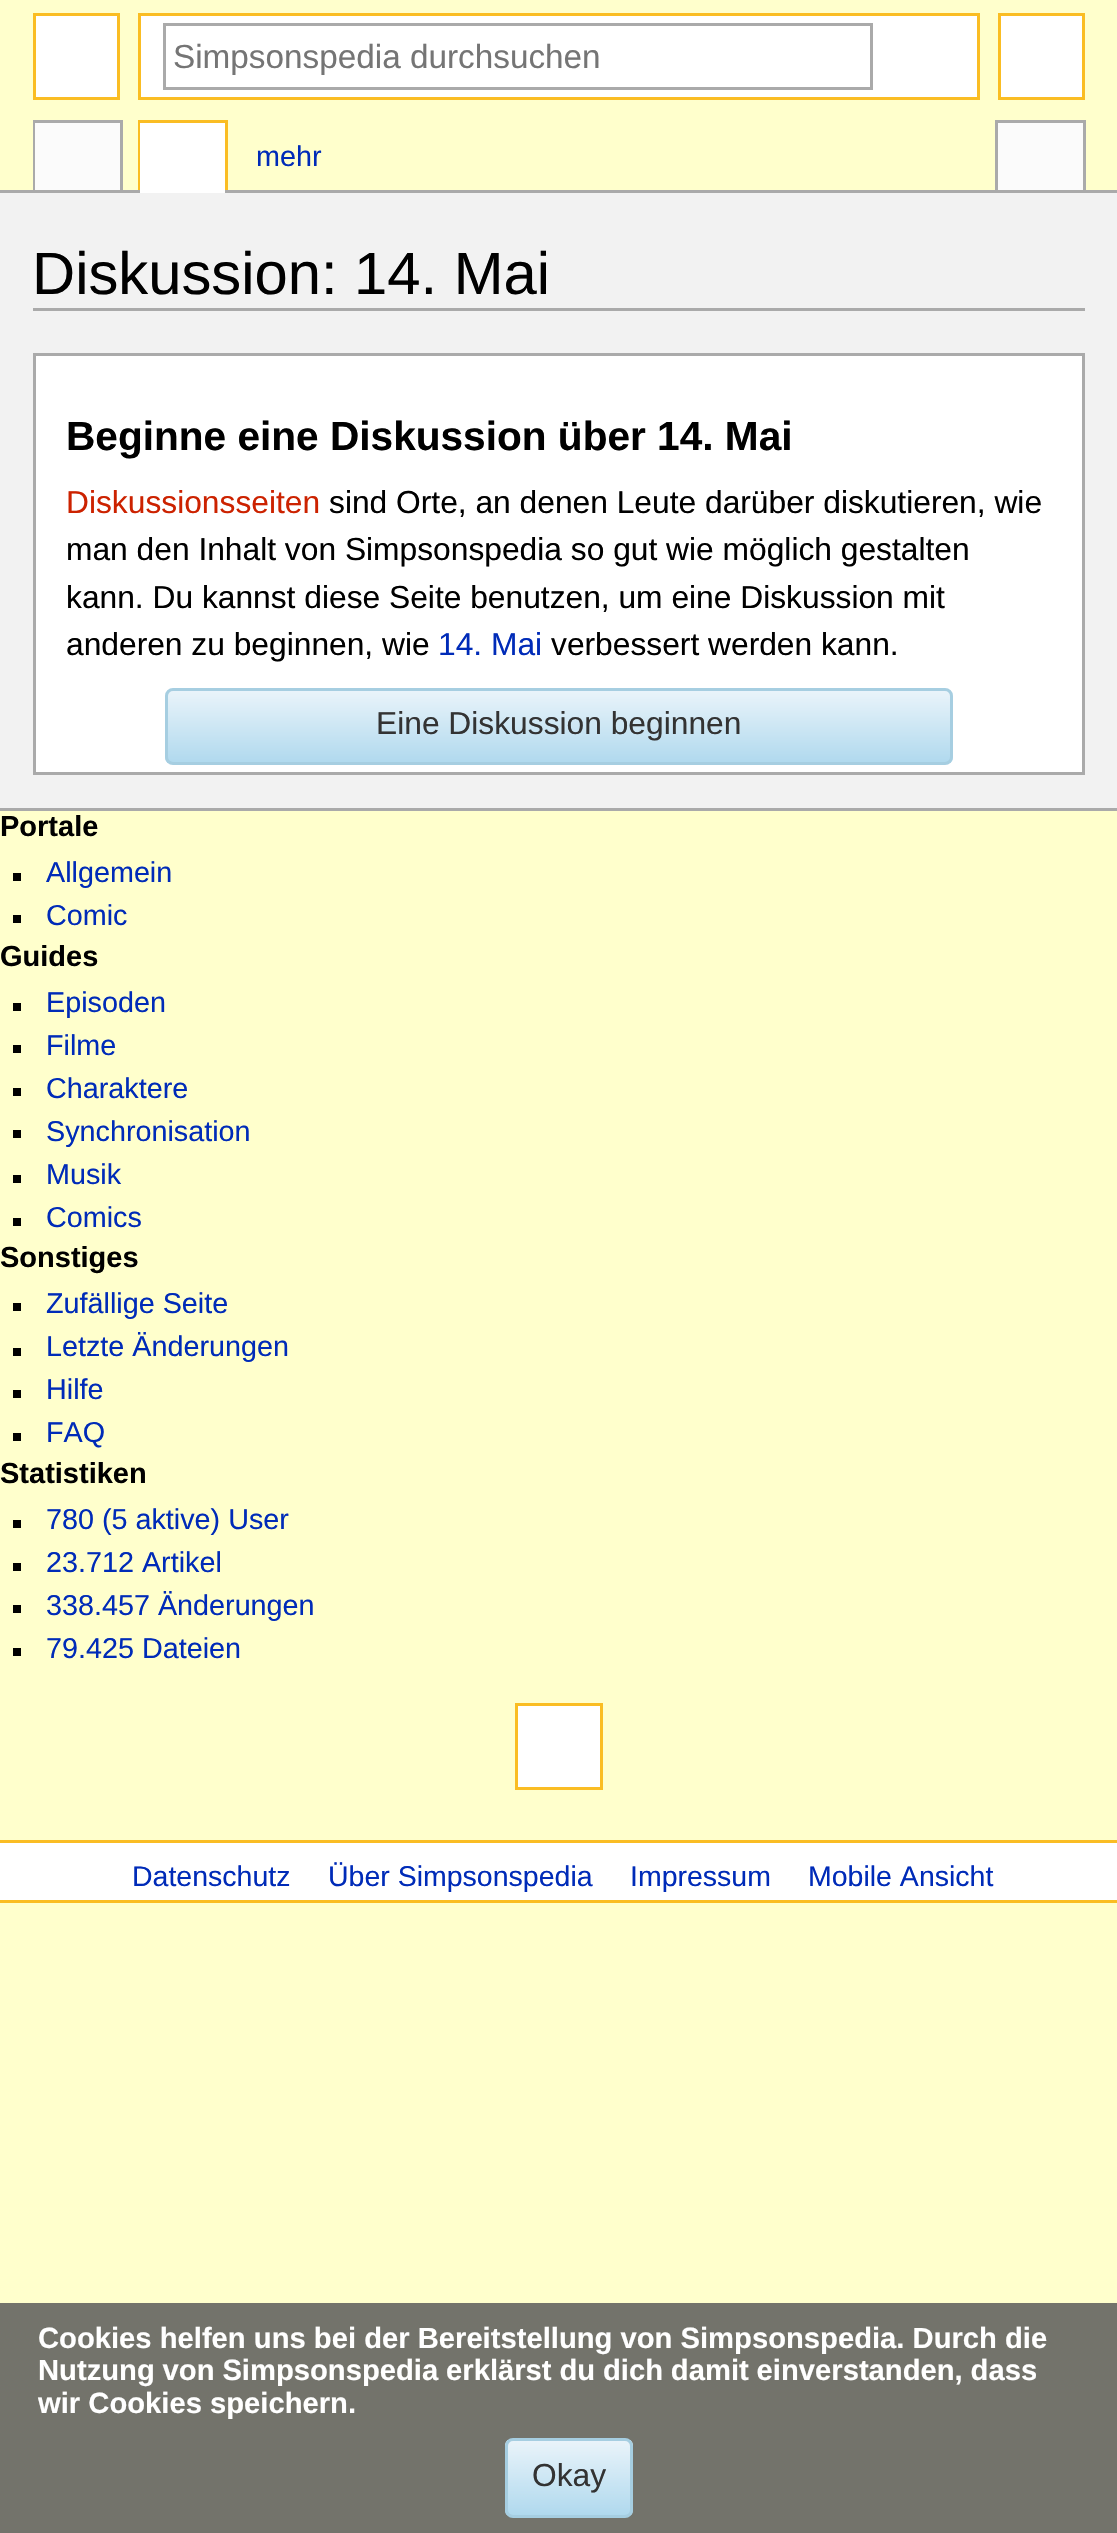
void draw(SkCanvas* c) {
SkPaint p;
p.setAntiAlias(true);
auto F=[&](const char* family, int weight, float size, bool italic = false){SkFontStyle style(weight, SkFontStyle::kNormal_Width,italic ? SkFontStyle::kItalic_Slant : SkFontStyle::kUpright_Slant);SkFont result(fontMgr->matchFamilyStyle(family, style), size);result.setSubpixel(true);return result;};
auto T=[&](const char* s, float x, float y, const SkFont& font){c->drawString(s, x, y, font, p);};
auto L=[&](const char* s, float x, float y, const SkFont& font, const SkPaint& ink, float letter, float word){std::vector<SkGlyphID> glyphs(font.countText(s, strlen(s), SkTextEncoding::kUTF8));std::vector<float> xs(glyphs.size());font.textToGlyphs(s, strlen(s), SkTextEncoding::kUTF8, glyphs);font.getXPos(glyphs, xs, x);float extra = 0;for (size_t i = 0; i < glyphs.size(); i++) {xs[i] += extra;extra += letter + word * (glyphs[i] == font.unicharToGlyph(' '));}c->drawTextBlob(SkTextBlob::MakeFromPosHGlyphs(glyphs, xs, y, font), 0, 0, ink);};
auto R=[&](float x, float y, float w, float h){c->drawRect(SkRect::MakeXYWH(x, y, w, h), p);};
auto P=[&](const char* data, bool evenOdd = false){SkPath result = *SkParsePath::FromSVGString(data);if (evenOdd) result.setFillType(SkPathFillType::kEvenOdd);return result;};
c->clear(0xffffffcc);
p.setColor(0xffffffff);
c->drawRect(SkRect::MakeXYWH(34.5,14.5,84,84),p);
p.setStroke(true);
p.setStrokeWidth(3);
p.setColor(0xfffabd23);
c->drawRect(SkRect::MakeXYWH(34.5,14.5,84,84),p);
p.setStroke(false);
p.setColor(0xffffffff);
c->drawRect(SkRect::MakeXYWH(999.5,14.5,84,84),p);
p.setStroke(true);
p.setColor(0xfffabd23);
c->drawRect(SkRect::MakeXYWH(999.5,14.5,84,84),p);
p.setStroke(false);
p.setColor(0xffffffff);
c->drawRect(SkRect::MakeXYWH(139.5,14.5,839,84),p);
p.setStroke(true);
p.setColor(0xfffabd23);
c->drawRect(SkRect::MakeXYWH(139.5,14.5,839,84),p);
p.setColor(0xffaaaaaa);
c->drawRect(SkRect::MakeXYWH(164.5,24.5,707,64),p);
auto f1 = F("Liberation Sans",400,33.3);
p.setStroke(false);
p.setColor(0xff757575);
T("Simpsonspedia durchsuchen",173,68,f1);
auto f2 = F("Liberation Sans",700,29);
p.setColor(0xff000000);
T("Portale",0,836,f2);
R(13,873,8,8);
auto f3 = F("Liberation Sans",400,28.75);
p.setColor(0xff002bb8);
T("Allgemein",46,882,f3);
p.setColor(0xff000000);
R(13,915,8,8);
p.setColor(0xff002bb8);
T("Comic",46,925,f3);
p.setColor(0xff000000);
T("Guides",0,966,f2);
R(13,1003,8,8);
p.setColor(0xff002bb8);
T("Episoden",46,1012,f3);
p.setColor(0xff000000);
R(13,1045,8,8);
p.setColor(0xff002bb8);
T("Filme",46,1055,f3);
p.setColor(0xff000000);
R(13,1088,8,8);
p.setColor(0xff002bb8);
T("Charaktere",46,1098,f3);
p.setColor(0xff000000);
R(13,1130,8,8);
p.setColor(0xff002bb8);
T("Synchronisation",46,1141,f3);
p.setColor(0xff000000);
R(13,1175,8,8);
p.setColor(0xff002bb8);
T("Musik",46,1184,f3);
p.setColor(0xff000000);
R(13,1218,8,8);
p.setColor(0xff002bb8);
T("Comics",46,1227,f3);
p.setColor(0xff000000);
T("Sonstiges",0,1267,f2);
R(13,1303,8,8);
p.setColor(0xff002bb8);
T("Zufällige Seite",46,1313,f3);
p.setColor(0xff000000);
R(13,1348,8,8);
p.setColor(0xff002bb8);
T("Letzte Änderungen",46,1356,f3);
p.setColor(0xff000000);
R(13,1390,8,8);
p.setColor(0xff002bb8);
T("Hilfe",46,1399,f3);
p.setColor(0xff000000);
R(13,1433,8,8);
p.setColor(0xff002bb8);
T("FAQ",46,1442,f3);
p.setColor(0xff000000);
T("Statistiken",0,1483,f2);
R(13,1520,8,8);
p.setColor(0xff002bb8);
T("780 (5 aktive) User",46,1529,f3);
p.setColor(0xff000000);
R(13,1563,8,8);
p.setColor(0xff002bb8);
T("23.712 Artikel",46,1572,f3);
p.setColor(0xff000000);
R(13,1605,8,8);
p.setColor(0xff002bb8);
T("338.457 Änderungen",46,1615,f3);
p.setColor(0xff000000);
R(13,1648,8,8);
p.setColor(0xff002bb8);
T("79.425 Dateien",46,1658,f3);
p.setColor(0xffaaaaaa);
R(33,120,90,3);
R(120,120,3,73);
R(33,120,3,73);
p.setColor(0xfffbfbfb);
R(35,123,85,67);
p.setColor(0xfffabd23);
R(138,120,90,3);
R(225,120,3,73);
R(138,120,3,73);
p.setColor(0xffaaaaaa);
R(995,120,90,3);
R(1083,120,3,73);
R(995,120,3,73);
R(0,190,1117,3);
p.setColor(0xffffffff);
R(140,123,85,70);
p.setColor(0xff002bb8);
T("mehr",256,166,f3);
p.setColor(0xfffbfbfb);
R(998,123,85,67);
p.setColor(0xffffffff);
c->drawRect(SkRect::MakeXYWH(516.5,1704.5,85,84),p);
p.setStroke(true);
p.setColor(0xfffabd23);
c->drawRect(SkRect::MakeXYWH(516.5,1704.5,85,84),p);
p.setStroke(false);
p.setColor(0xfff2f2f2);
R(0,193,1117,615);
p.setColor(0xffaaaaaa);
R(0,808,1117,3);
R(33,308,1052,3);
auto f4 = F("Liberation Sans",400,59.75);
p.setColor(0xff000000);
T("Diskussion: 14. Mai",32,294,f4);
p.setColor(0xffffffff);
c->drawRect(SkRect::MakeXYWH(34.5,354.5,1049,419),p);
p.setStroke(true);
p.setColor(0xffaaaaaa);
c->drawRect(SkRect::MakeXYWH(34.5,354.5,1049,419),p);
auto f5 = F("Liberation Sans",700,40.6);
p.setStroke(false);
p.setColor(0xff000000);
T("Beginne eine Diskussion über 14. Mai",66,450,f5);
auto f6 = F("Liberation Sans",400,31.75);
p.setColor(0xffcc2200);
T("Diskussionsseiten",66,513,f6);
p.setColor(0xff000000);
T("sind Orte, an denen Leute darüber diskutieren, wie",329,513,f6);
T("man den Inhalt von Simpsonspedia so gut wie möglich gestalten",66,560,f6);
T("kann. Du kannst diese Seite benutzen, um eine Diskussion mit",66,608,f6);
T("anderen zu beginnen, wie",66,655,f6);
p.setColor(0xff002bb8);
T("14. Mai",438,655,f6);
p.setColor(0xff000000);
T("verbessert werden kann.",551,655,f6);
c->save();
c->clipPath(P("M173 688h772c4.5 0 8 3.5 8 8v61c0 4.5-3.5 8-8 8h-772c-4.5 0-8-3.5-8-8v-61c0-4.5 3.5-8 8-8z"),true);
{
const SkColor colors[] = {0xffeaf4fa,0xffb0d9ee};
const float stops[] = {0,1};
const SkPoint ends[] = {{559,690}, {559,763}};
p.setShader(SkGradientShader::MakeLinear(ends, colors, stops, 2, SkTileMode::kClamp));
p.setAlpha(255);
}
R(165,690,788,73);
c->restore();
p.setStroke(true);
p.setShader(nullptr);
p.setColor(0xffa6cee1);
c->drawRoundRect(SkRect::MakeXYWH(166.5,689.5,785,74),6.5,6.5,p);
p.setStroke(false);
p.setColor(0xff333333);
T("Eine Diskussion beginnen",376,734,f6);
p.setColor(0xff73736b);
R(0,2303,1117,230);
auto f7 = F("Liberation Sans",700,29.2);
p.setColor(0xffffffff);
T("Cookies helfen uns bei der Bereitstellung von Simpsonspedia. Durch die",38,2348,f7);
L("Nutzung von Simpsonspedia erklärst du dich damit einverstanden, dass",38,2380,f7,p,0,-.25);
T("wir Cookies speichern.",38,2413,f7);
c->save();
c->clipPath(P("M513 2438h112c4.5 0 8 3.5 8 8v64c0 4.5-3.5 8-8 8h-112c-4.5 0-8-3.5-8-8v-64c0-4.5 3.5-8 8-8z"),true);
{
const SkColor colors[] = {0xffeaf4fa,0xffb0d9ee};
const float stops[] = {0,1};
const SkPoint ends[] = {{569,2440}, {569,2515}};
p.setShader(SkGradientShader::MakeLinear(ends, colors, stops, 2, SkTileMode::kClamp));
p.setAlpha(255);
}
R(505,2440,128,75);
c->restore();
p.setStroke(true);
p.setShader(nullptr);
p.setColor(0xffa6cee1);
c->drawRoundRect(SkRect::MakeXYWH(506.5,2439.5,125,77),6.5,6.5,p);
p.setStroke(false);
p.setColor(0xff333333);
T("Okay",532,2486,f6);
p.setColor(0xffffffff);
R(0,1843,1117,57);
p.setColor(0xfffabd23);
R(0,1840,1117,3);
R(0,1900,1117,3);
auto f8 = F("Liberation Sans",400,28.5);
p.setColor(0xff002bb8);
T("Datenschutz",132,1886,f8);
T("Über Simpsonspedia",328,1886,f8);
T("Impressum",630,1886,f8);
T("Mobile Ansicht",808,1886,f8);
}
